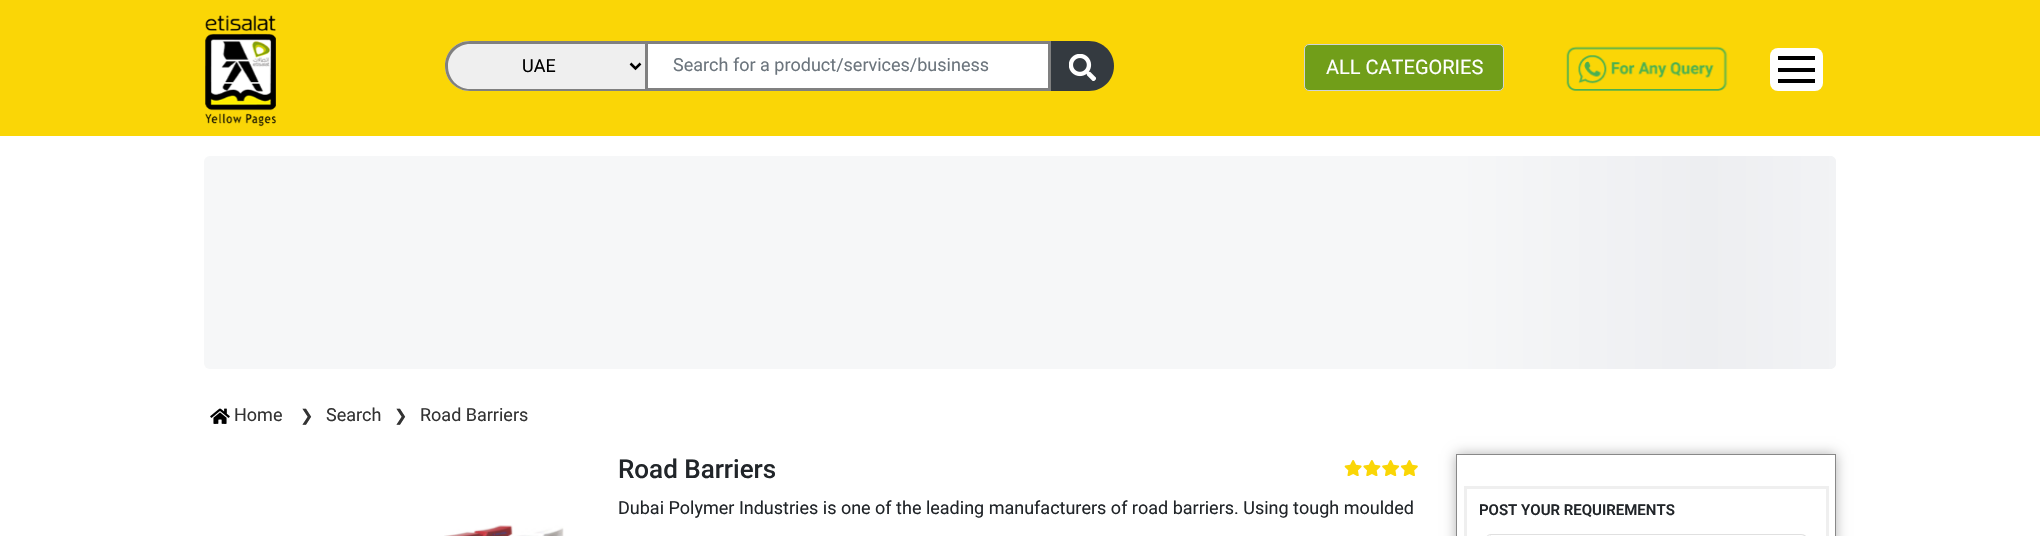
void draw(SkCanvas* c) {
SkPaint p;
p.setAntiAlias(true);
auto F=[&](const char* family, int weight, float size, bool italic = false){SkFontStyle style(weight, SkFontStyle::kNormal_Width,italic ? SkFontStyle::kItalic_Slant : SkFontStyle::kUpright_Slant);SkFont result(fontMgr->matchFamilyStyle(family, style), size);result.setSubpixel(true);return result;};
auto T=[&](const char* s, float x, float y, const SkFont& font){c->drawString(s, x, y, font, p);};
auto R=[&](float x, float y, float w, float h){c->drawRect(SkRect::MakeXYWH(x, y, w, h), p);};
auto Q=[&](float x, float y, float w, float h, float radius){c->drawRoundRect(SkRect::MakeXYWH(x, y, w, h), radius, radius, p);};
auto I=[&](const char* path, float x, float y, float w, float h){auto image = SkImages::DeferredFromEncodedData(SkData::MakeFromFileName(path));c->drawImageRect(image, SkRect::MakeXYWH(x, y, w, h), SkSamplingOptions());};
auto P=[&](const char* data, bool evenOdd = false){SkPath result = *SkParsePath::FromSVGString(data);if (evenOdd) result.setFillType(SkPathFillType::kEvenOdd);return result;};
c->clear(0xffffffff);
p.setColor(0xfffad606);
R(0,0,2040,136);
I("1.png",205,15,71,112);
p.setColor(0xffefefef);
c->drawPath(P("M470 41h175v50h-175c-14 0-25-11-25-25c0-14 11-25 25-25z"),p);
p.setColor(0xff808080);
c->drawPath(P("M470 41h175v50h-175c-14 0-25-11-25-25c0-14 11-25 25-25zm0 3h175v45h-175c-12 0-22-10-22-23c0-12 10-22 22-22z",true),p);
p.setStroke(true);
p.setStrokeWidth(2.5);
p.setColor(0xff000000);
c->drawPath(P("M630.5 63.5l5 5l5-5"),p);
auto f1 = F("Roboto",400,18);
p.setStroke(false);
T("UAE",522,72,f1);
p.setColor(0xffffffff);
c->drawRect(SkRect::MakeXYWH(646.5,42.5,403,47),p);
p.setStroke(true);
p.setStrokeWidth(3);
p.setColor(0xff808080);
c->drawRect(SkRect::MakeXYWH(646.5,42.5,403,47),p);
p.setStroke(false);
p.setColor(0xff6c757d);
T("Search for a product/services/business",673,71,f1);
p.setColor(0xff343a40);
c->drawPath(P("M1051 41h38c14 0 25 11 25 25c0 14-11 25-25 25h-38z"),p);
I("2.png",1069,54,27,27);
p.setColor(0xff719e19);
c->drawRoundRect(SkRect::MakeXYWH(1304.5,44.5,199,46),4.5,4.5,p);
p.setStroke(true);
p.setStrokeWidth(1);
p.setColor(0xffced4da);
c->drawRoundRect(SkRect::MakeXYWH(1304.5,44.5,199,46),4.5,4.5,p);
auto f2 = F("Roboto",400,20);
p.setStroke(false);
p.setColor(0xffffffff);
T("ALL CATEGORIES",1326,74,f2);
I("3.png",1566,46,162,45);
Q(1770,48,53,43,8);
p.setColor(0xff000000);
R(1778,56,37,4);
R(1778,68,37,4);
R(1778,79,37,4);
p.setColor(0xfff6f7f8);
Q(204,156,1632,213,6);
{
const SkColor colors[] = {0xfff6f7f8,0xffedeef1,0xfff6f7f8,0xfff6f7f8};
const float stops[] = {0,.2,.4,1};
const SkPoint ends[] = {{1454,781}, {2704,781}};
p.setShader(SkGradientShader::MakeLinear(ends, colors, stops, 4, SkTileMode::kClamp));
p.setAlpha(255);
}
c->drawPath(P("M1454 156h376c3.5 0 6 2.5 6 6v201c0 3.5-2.5 6-6 6h-376z"),p);
I("4.png",210,408,20,16);
p.setShader(nullptr);
p.setColor(0xff333333);
T("Home",234,421,f1);
auto f3 = F("DejaVu Sans",400,16);
T("❯",300,421,f3);
T("Search",326,421,f1);
T("❯",394,421,f3);
T("Road Barriers",420,421,f1);
auto f4 = F("Roboto",500,26);
p.setColor(0xff212529);
T("Road Barriers",618,478,f4);
I("5.png",1344,460,18,16);
I("6.png",1363,460,18,16);
I("7.png",1382,460,18,16);
I("8.png",1400,460,18,16);
T("Dubai Polymer Industries is one of the leading manufacturers of road barriers. Using tough moulded",618,514,f1);
I("9.png",444,525,120,11);
c->save();
c->clipPath(P("M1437 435h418v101h-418zm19 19h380v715h-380z",true),true);
p.setColor(0x4d000000);
p.setMaskFilter(SkMaskFilter::MakeBlur(kNormal_SkBlurStyle, 6));
c->drawRect(SkRect::MakeXYWH(1456,454,380,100),p);
p.setMaskFilter(nullptr);
c->restore();
p.setStroke(true);
p.setColor(0xff888888);
c->drawRect(SkRect::MakeXYWH(1456.5,454.5,379,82),p);
p.setStrokeWidth(3);
p.setColor(0xffefefef);
c->drawRect(SkRect::MakeXYWH(1465.5,487.5,362,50),p);
auto f5 = F("Roboto",600,15);
p.setStroke(false);
p.setColor(0xff212529);
T("POST YOUR REQUIREMENTS",1479,515,f5);
p.setColor(0xffe0e0e0);
c->drawPath(P("M1491 534v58c-3 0-6-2-6-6v-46c0-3 3-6 6-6zm0 1v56c-3 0-5-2-5-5v-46c0-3 2-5 5-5z",true),p);
R(1491,534,178,1);
c->drawPath(P("M1669 534h132c4 0 7 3 7 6v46c0 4-3 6-7 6h-132zm0 1h132c3 0 5 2 5 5v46c0 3-2 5-5 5h-132z",true),p);
}
